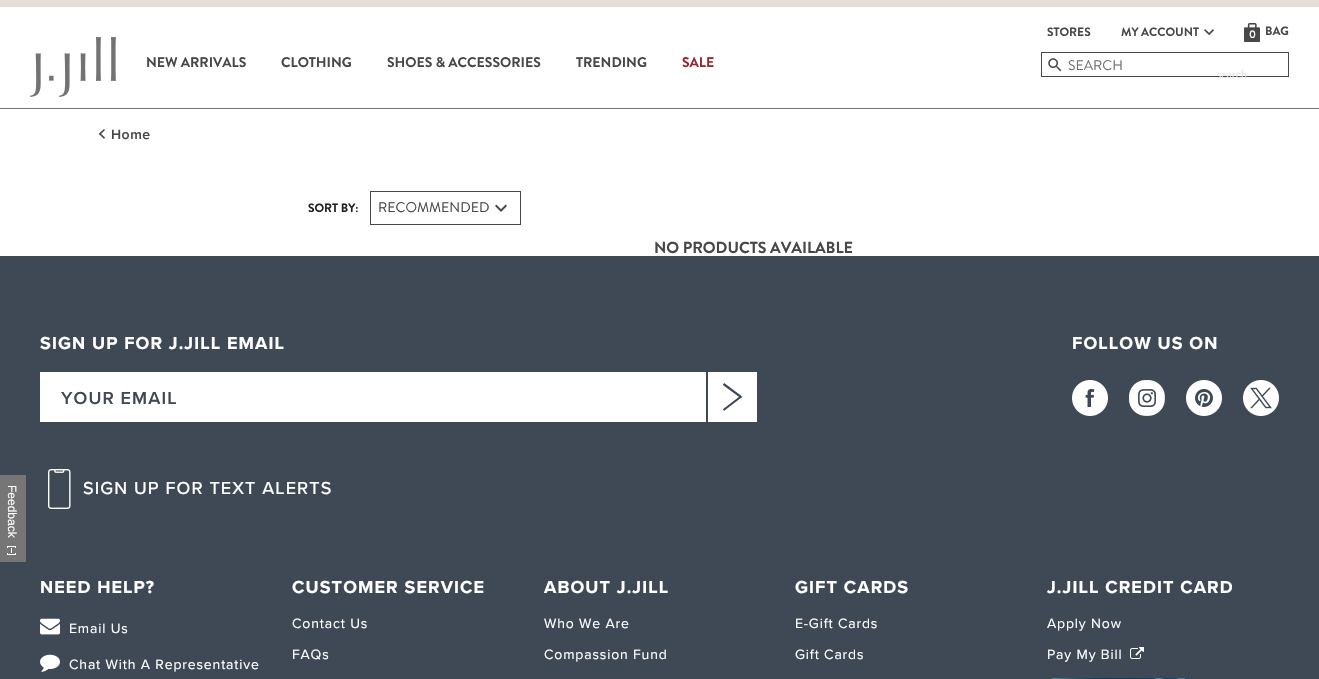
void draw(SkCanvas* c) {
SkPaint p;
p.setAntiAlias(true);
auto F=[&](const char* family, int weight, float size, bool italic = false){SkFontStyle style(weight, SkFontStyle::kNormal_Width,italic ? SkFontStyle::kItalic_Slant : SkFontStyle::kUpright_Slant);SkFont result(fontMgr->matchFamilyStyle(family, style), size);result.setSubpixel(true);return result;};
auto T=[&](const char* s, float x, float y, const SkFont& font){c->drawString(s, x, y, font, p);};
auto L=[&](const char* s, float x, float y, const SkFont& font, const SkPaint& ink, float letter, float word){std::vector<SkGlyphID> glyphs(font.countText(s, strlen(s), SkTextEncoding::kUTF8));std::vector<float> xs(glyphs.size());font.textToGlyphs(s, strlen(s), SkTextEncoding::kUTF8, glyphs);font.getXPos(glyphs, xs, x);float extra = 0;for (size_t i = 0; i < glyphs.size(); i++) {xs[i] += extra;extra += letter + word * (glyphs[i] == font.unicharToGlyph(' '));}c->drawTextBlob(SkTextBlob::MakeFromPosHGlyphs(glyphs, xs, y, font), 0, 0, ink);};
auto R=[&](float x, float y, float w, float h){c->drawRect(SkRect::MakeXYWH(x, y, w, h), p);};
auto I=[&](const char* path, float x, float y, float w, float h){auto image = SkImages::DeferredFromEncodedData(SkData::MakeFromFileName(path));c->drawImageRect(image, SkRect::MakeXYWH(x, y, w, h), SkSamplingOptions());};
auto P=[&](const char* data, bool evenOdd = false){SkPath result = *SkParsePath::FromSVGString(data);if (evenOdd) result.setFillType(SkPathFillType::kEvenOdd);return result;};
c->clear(0xffffffff);
p.setColor(0xff3f4955);
R(0,256,1319,423);
p.setColor(0xff767676);
R(0,475,26,87);
auto f1 = F("Liberation Sans",400,12);
p.setColor(0xffffffff);
c->save();
c->rotate(90,8,485);
T("Feedback",8,485,f1);
c->restore();
I("1.png",7,546,9,9);
p.setColor(0xffe5ded6);
R(0,0,1319,7);
p.setColor(0xff737373);
R(0,108,1319,1);
I("2.png",30,37,86,60);
auto f2 = F("Brandon Grotesque",700,14);
p.setColor(0xff474747);
T("NEW ARRIVALS",146,67,f2);
T("CLOTHING",281,67,f2);
T("SHOES & ACCESSORIES",387,67,f2);
T("TRENDING",576,67,f2);
p.setColor(0xff992531);
T("SALE",682,67,f2);
auto f3 = F("Brandon Grotesque",700,12);
p.setColor(0xff474747);
T("STORES",1047,36,f3);
T("MY ACCOUNT",1121,36,f3);
I("3.png",1204,29,10,7);
I("4.png",1244,23,16,19);
auto f4 = F("Brandon Grotesque",500,11);
p.setColor(0xffffffff);
T("0",1249,38,f4);
p.setColor(0xff474747);
T("BAG",1265,35,f3);
p.setStroke(true);
p.setStrokeWidth(1);
c->drawRect(SkRect::MakeXYWH(1041.5,52.5,247,24),p);
I("5.png",1048,58,14,14);
auto f5 = F("Brandon Grotesque",400,14);
p.setStroke(false);
p.setColor(0xff737373);
T("SEARCH",1068,70,f5);
auto f6 = F("Brandon Grotesque",400,12);
p.setColor(0xffe3e3e3);
T("search",1217,78,f6);
p.setColor(0xff474747);
c->drawPath(P("M100 133l5 4.5l-1 1.5l-5-5z"),p);
c->drawPath(P("M99 133.5l5-4.5l1 1l-5 5z"),p);
auto f7 = F("Proxima Nova",600,14);
L("Home",111,139,f7,p,.5,0);
p.setColor(0xff212121);
T("SORT BY:",308,212,f3);
p.setStroke(true);
p.setColor(0xff474747);
c->drawRect(SkRect::MakeXYWH(370.5,191.5,150,33),p);
p.setStroke(false);
T("RECOMMENDED",378,212,f5);
I("6.png",495,204,12,8);
auto f8 = F("Brandon Grotesque",700,16);
T("NO PRODUCTS AVAILABLE",654,253,f8);
auto f9 = F("Proxima Nova",700,18);
p.setColor(0xffffffff);
L("SIGN UP FOR J.JILL EMAIL",40,349,f9,p,1.1,0);
R(40,372,666,50);
auto f10 = F("Proxima Nova",600,18);
p.setColor(0xff3f4955);
L("YOUR EMAIL",61,404,f10,p,1.1,0);
p.setColor(0xffffffff);
R(708,372,49,50);
p.setStroke(true);
p.setStrokeWidth(2.2);
p.setColor(0xff3f4955);
c->drawPath(P("M723.5 410l17-13c.5 0 .5 0 0-.5l-17-12.5"),p);
p.setStroke(false);
p.setColor(0xffffffff);
L("FOLLOW US ON",1072,349,f9,p,1.1,0);
I("7.png",1072,380,36,36);
I("8.png",1129,380,36,36);
I("9.png",1186,380,36,36);
I("10.png",1243,380,36,36);
I("11.png",48,469,23,40);
auto f11 = F("Proxima Nova",500,18);
L("SIGN UP FOR TEXT ALERTS",83,494,f11,p,1.1,0);
L("NEED HELP?",40,593,f9,p,1.1,0);
I("12.png",40,618,20,17);
auto f12 = F("Proxima Nova",400,14);
L("Email Us",69,633,f12,p,.85,0);
I("13.png",40,654,20,18);
L("Chat With A Representative",69,669,f12,p,.85,0);
L("CUSTOMER SERVICE",292,593,f9,p,1.1,0);
L("Contact Us",292,628,f12,p,.85,0);
L("FAQs",292,659,f12,p,.85,0);
L("ABOUT J.JILL",544,593,f9,p,1.1,0);
L("Who We Are",544,628,f12,p,.85,0);
L("Compassion Fund",544,659,f12,p,.85,0);
L("GIFT CARDS",795,593,f9,p,1.1,0);
L("E-Gift Cards",795,628,f12,p,.85,0);
L("Gift Cards",795,659,f12,p,.85,0);
L("J.JILL CREDIT CARD",1047,593,f9,p,1.1,0);
L("Apply Now",1047,628,f12,p,.85,0);
L("Pay My Bill",1047,659,f12,p,.85,0);
I("14.png",1130,647,14,12);
I("15.png",1051,678,139,1);
}
